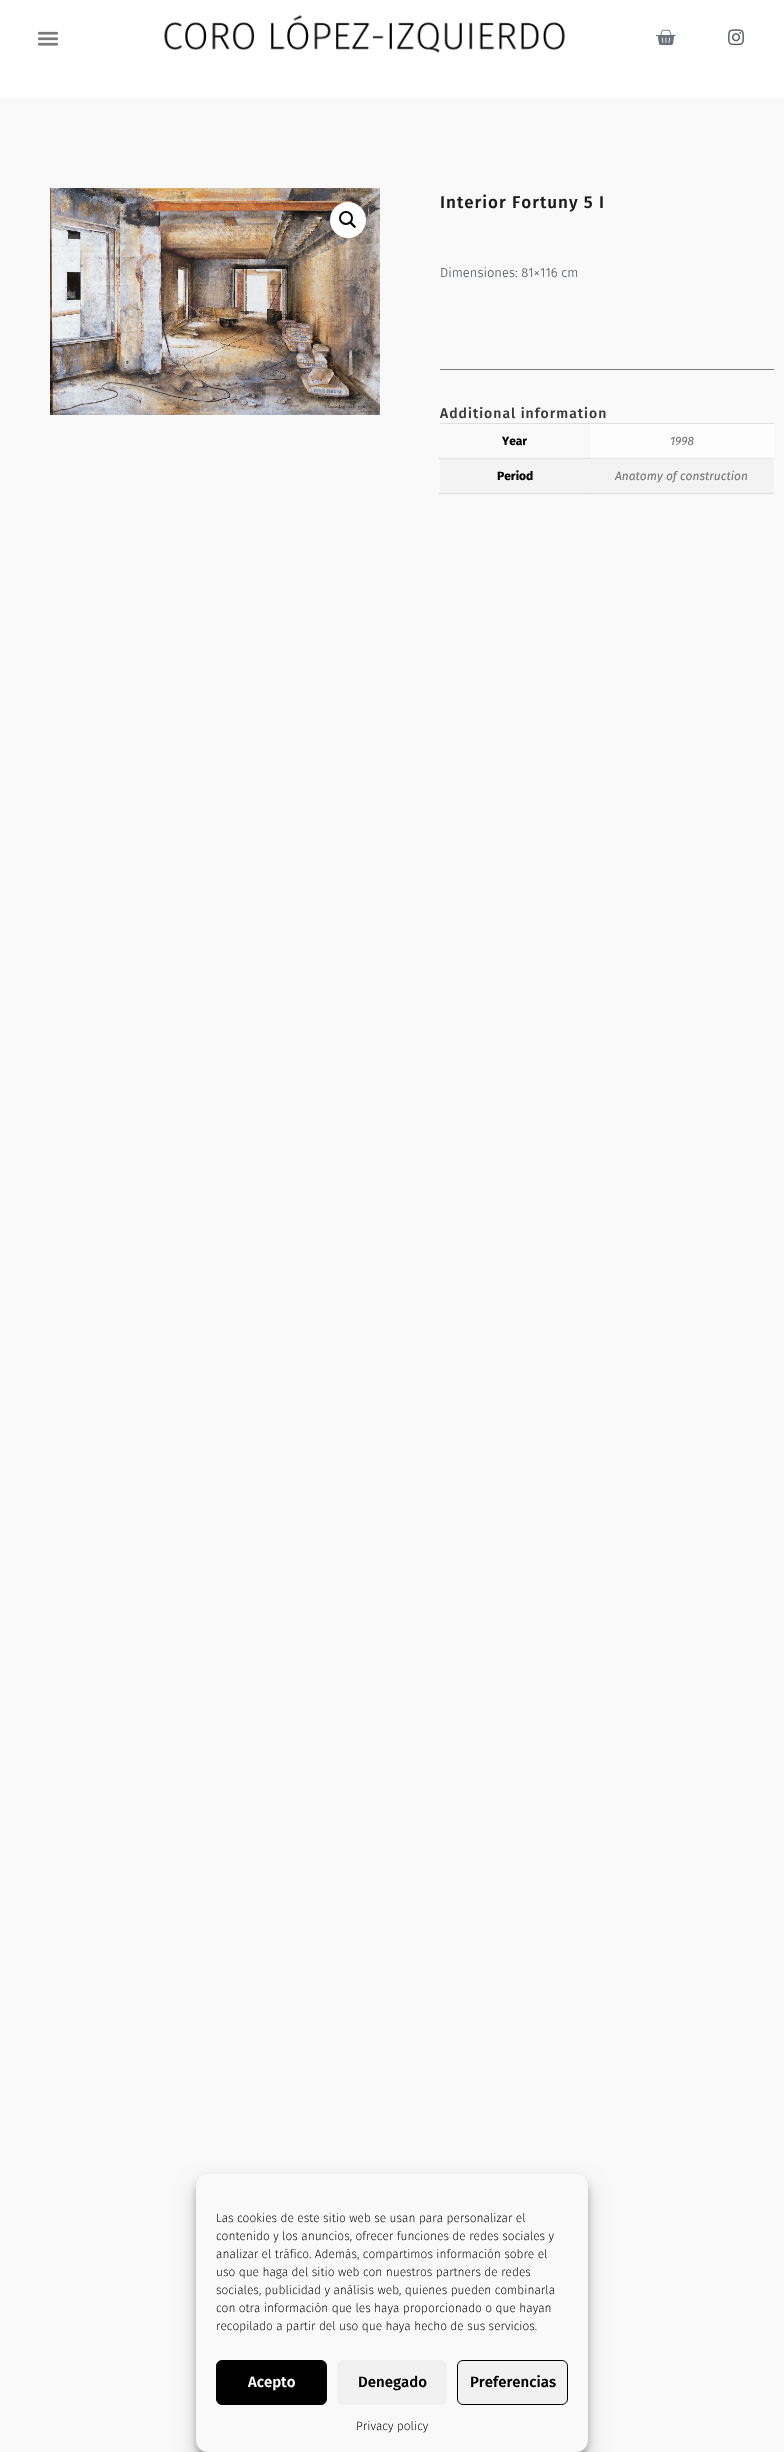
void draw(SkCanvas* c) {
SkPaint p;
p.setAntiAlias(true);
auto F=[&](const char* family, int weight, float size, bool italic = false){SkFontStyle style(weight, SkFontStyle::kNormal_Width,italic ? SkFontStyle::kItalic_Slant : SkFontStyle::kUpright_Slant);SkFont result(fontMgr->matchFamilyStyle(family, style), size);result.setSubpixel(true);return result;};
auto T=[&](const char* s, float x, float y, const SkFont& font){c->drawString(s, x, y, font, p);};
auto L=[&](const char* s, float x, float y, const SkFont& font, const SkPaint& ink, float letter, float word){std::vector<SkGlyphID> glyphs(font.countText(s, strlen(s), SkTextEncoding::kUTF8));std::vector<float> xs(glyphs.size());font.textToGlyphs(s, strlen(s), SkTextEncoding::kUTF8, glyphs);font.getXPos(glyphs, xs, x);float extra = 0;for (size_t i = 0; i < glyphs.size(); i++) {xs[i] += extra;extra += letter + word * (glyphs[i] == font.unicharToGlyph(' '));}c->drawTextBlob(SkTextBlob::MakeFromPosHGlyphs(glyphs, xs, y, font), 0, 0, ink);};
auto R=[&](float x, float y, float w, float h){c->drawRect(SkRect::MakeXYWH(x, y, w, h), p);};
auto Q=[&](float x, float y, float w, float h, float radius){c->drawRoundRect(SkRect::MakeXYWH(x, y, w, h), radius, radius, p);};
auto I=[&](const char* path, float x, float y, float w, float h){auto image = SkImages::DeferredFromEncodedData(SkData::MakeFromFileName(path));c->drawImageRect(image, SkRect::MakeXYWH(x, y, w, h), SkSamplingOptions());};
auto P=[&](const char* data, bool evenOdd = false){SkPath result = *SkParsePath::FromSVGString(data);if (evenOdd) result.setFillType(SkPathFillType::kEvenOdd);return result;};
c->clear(0xfff9f9f9);
p.setColor(0xffe0e0e0);
R(439,458,151,1);
p.setColor(0xffcacaca);
R(589,458,1,1);
p.setColor(0xffe0e0e0);
R(439,493,1,1);
p.setColor(0xffffffff);
R(0,0,784,98);
I("1.png",38,31,20,15);
I("2.png",164,15,401,38);
I("3.png",655,29,21,17);
I("4.png",728,29,16,17);
I("5.png",50,188,330,227);
c->drawCircle(348,220,18,p);
p.setStroke(true);
p.setStrokeWidth(2);
p.setColor(0xff000000);
c->drawCircle(346,218,6,p);
p.setStroke(false);
c->drawPath(P("M350 222c1-1 3 1.5 3.5 2c.5 1 3.5 2.5 2 3.5c-1 1.5-3-1.5-3.5-2c-.5-.5-3-2.5-2-3.5z"),p);
auto f1 = F("Fira Sans",500,17);
p.setColor(0xff1c1c1d);
L("Interior Fortuny 5 I",440,208,f1,p,1,0);
auto f2 = F("Fira Sans",300,13);
p.setColor(0xff54595f);
T("Dimensiones: 81×116 cm",440,277,f2);
p.setColor(0xff7a7a7a);
R(440,369,334,1);
auto f3 = F("Fira Sans",500,14);
p.setColor(0xff3a3a3a);
L("Additional information",440,418,f3,p,1,0);
p.setColor(0xffe0e0e0);
R(440,423,334,1);
auto f4 = F("Fira Sans",700,12);
p.setColor(0xff000000);
T("Year",502,445,f4);
p.setColor(0xfffdfdfd);
R(590,424,184,34);
p.setColor(0xffe4e4e4);
R(590,458,184,1);
auto f5 = F("Fira Sans",400,12,true);
p.setColor(0xff777777);
T("1998",670,445,f5);
p.setColor(0xfff3f3f3);
R(440,459,334,34);
p.setColor(0xffdbdbdb);
R(440,493,334,1);
p.setColor(0xff000000);
T("Period",497,480,f4);
p.setColor(0xffc5c5c5);
R(589,493,1,1);
p.setColor(0xff777777);
T("Anatomy of construction",615,480,f5);
p.setColor(0x3b000000);
p.setMaskFilter(SkMaskFilter::MakeBlur(kNormal_SkBlurStyle, 3));
c->drawRoundRect(SkRect::MakeXYWH(196,2180,392,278),12,12,p);
p.setMaskFilter(nullptr);
p.setColor(0x30000000);
p.setMaskFilter(SkMaskFilter::MakeBlur(kNormal_SkBlurStyle, 10));
c->drawRoundRect(SkRect::MakeXYWH(196,2184,392,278),12,12,p);
p.setMaskFilter(nullptr);
p.setColor(0xfff9f9f9);
Q(196,2174,392,278,12);
auto f6 = F("Fira Sans",200,12);
p.setColor(0xff000000);
T("Las cookies de este sitio web se usan para personalizar el",216,2222,f6);
T("contenido y los anuncios, ofrecer funciones de redes sociales y",216,2240,f6);
T("analizar el tráfico. Además, compartimos información sobre el",216,2258,f6);
T("uso que haga del sitio web con nuestros partners de redes",216,2276,f6);
T("sociales, publicidad y análisis web, quienes pueden combinarla",216,2294,f6);
T("con otra información que les haya proporcionado o que hayan",216,2312,f6);
T("recopilado a partir del uso que haya hecho de sus servicios.",216,2330,f6);
c->drawRoundRect(SkRect::MakeXYWH(216.5,2360.5,110,44),5.5,5.5,p);
p.setStroke(true);
p.setStrokeWidth(1);
c->drawRoundRect(SkRect::MakeXYWH(216.5,2360.5,110,44),5.5,5.5,p);
auto f7 = F("Fira Sans",500,15);
p.setStroke(false);
p.setColor(0xffffffff);
T("Acepto",248,2387,f7);
p.setColor(0xfff1f1f1);
Q(337,2360,110,45,6);
p.setColor(0xff000000);
T("Denegado",358,2387,f7);
p.setColor(0xfff1f1f1);
c->drawRoundRect(SkRect::MakeXYWH(457.5,2360.5,110,44),5.5,5.5,p);
p.setStroke(true);
p.setColor(0xff000000);
c->drawRoundRect(SkRect::MakeXYWH(457.5,2360.5,110,44),5.5,5.5,p);
p.setStroke(false);
T("Preferencias",470,2387,f7);
T("Privacy policy",356,2430,f6);
}
